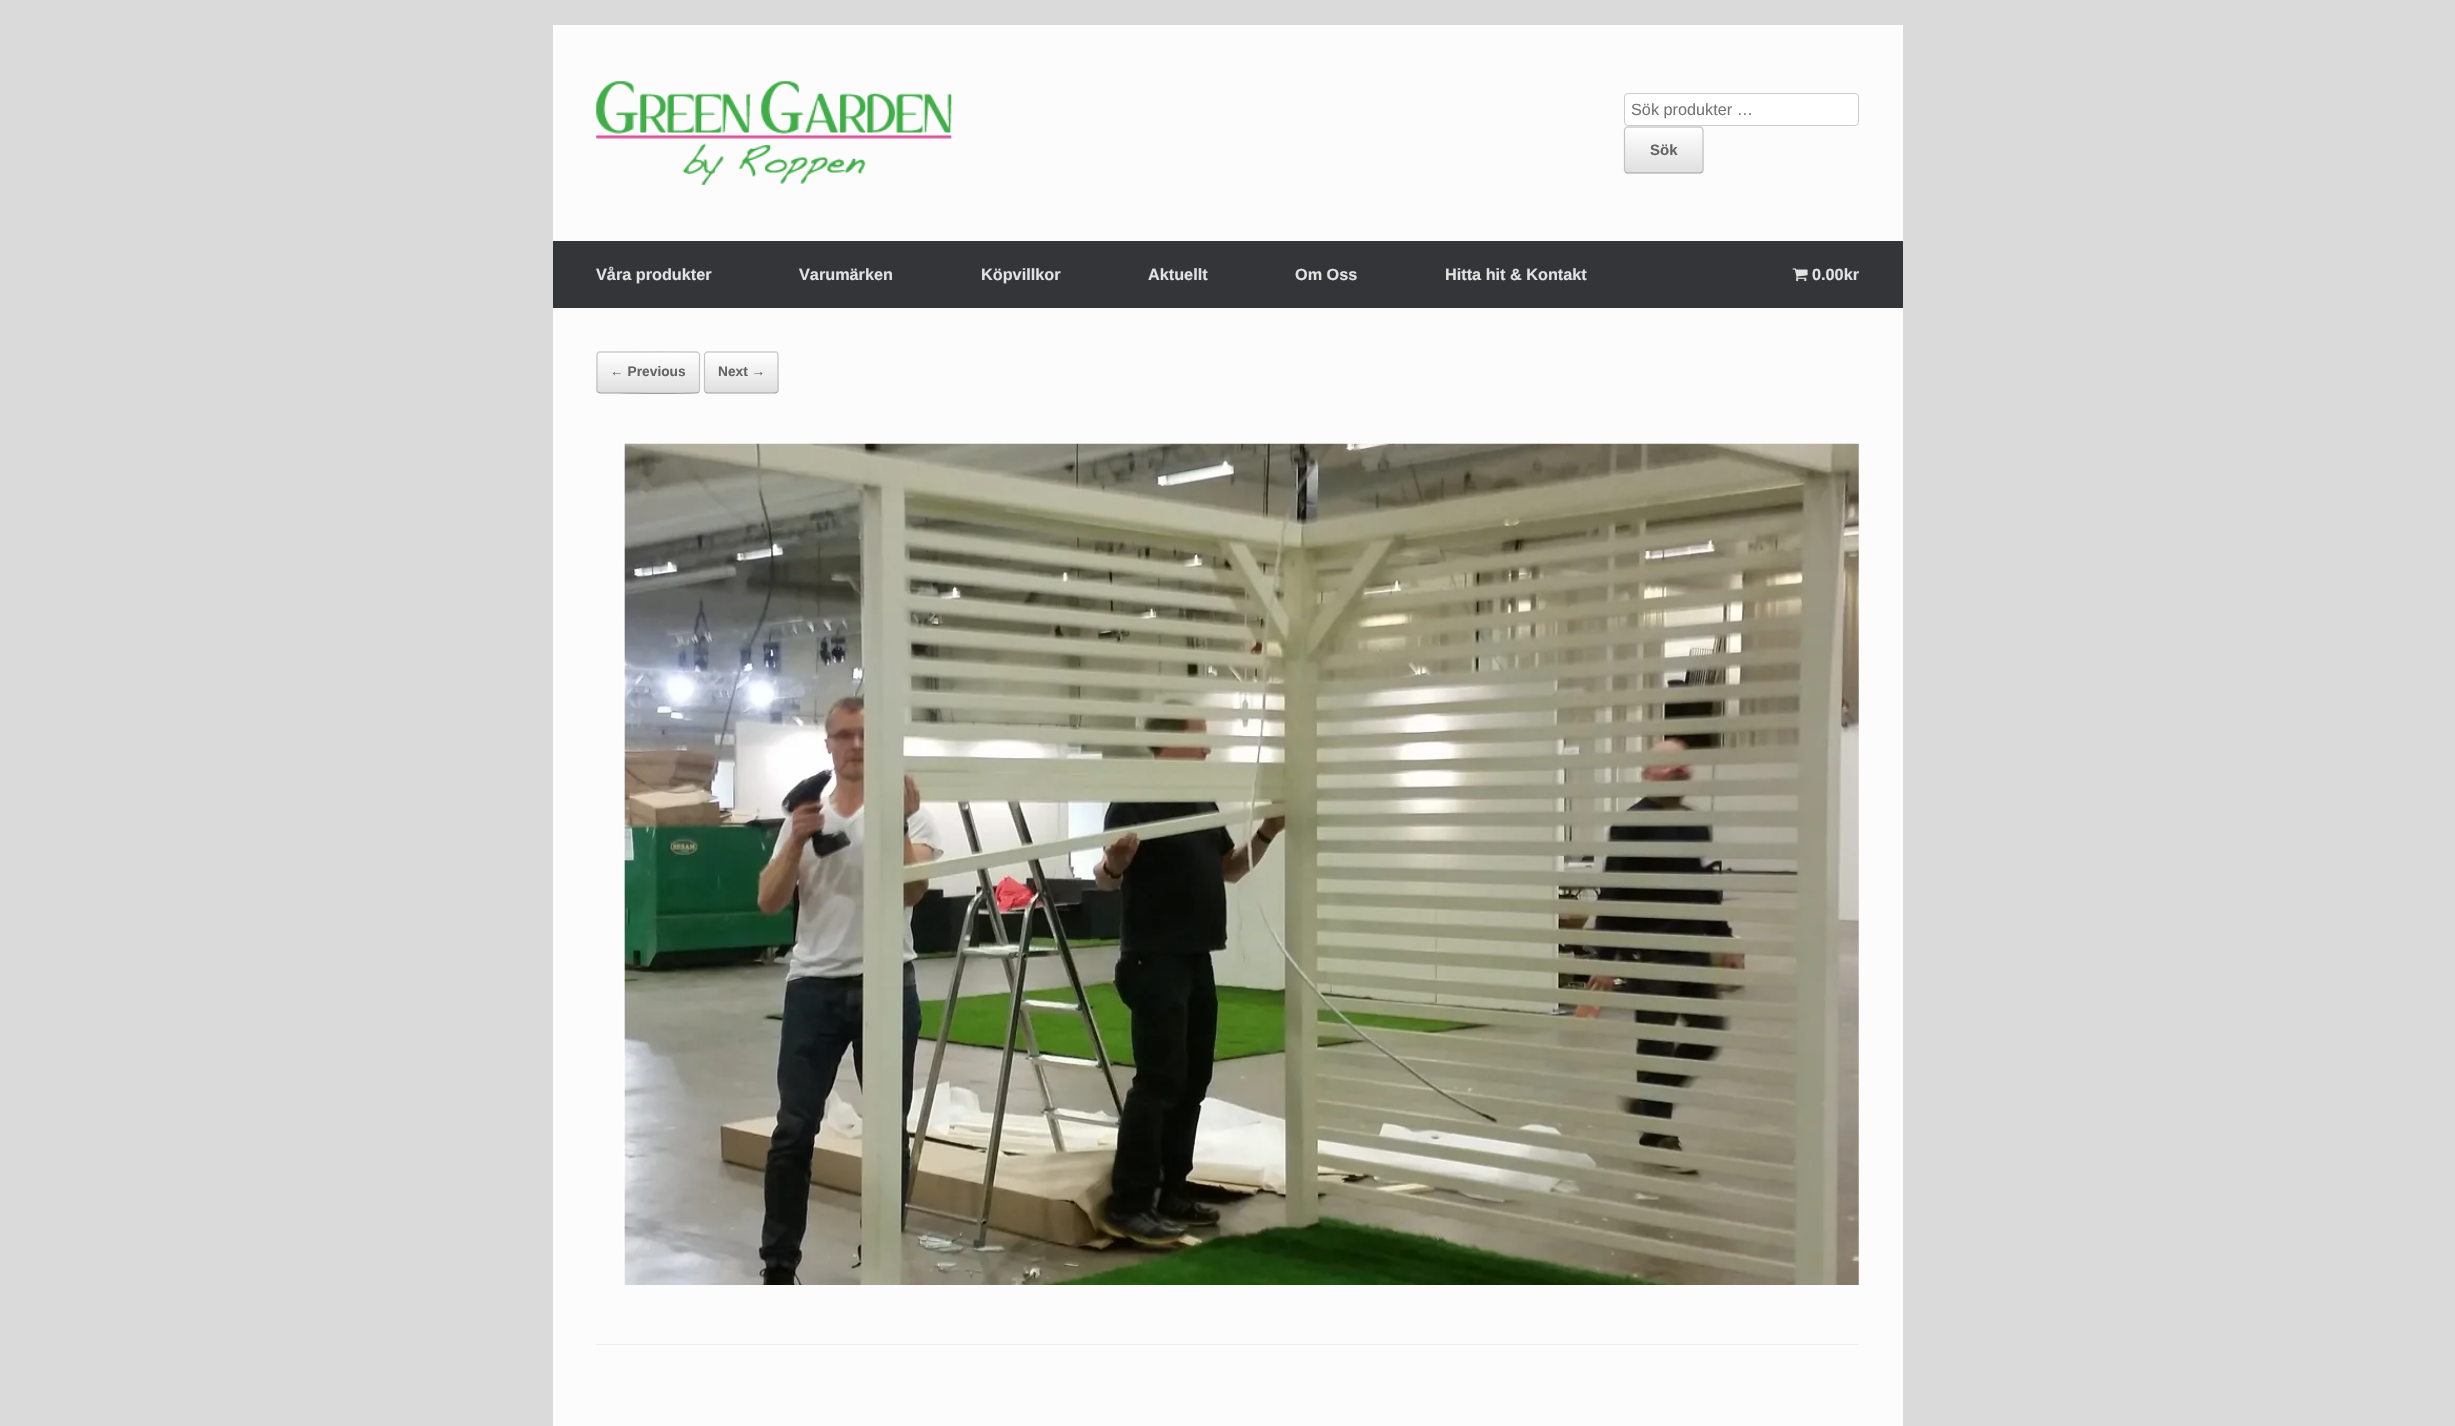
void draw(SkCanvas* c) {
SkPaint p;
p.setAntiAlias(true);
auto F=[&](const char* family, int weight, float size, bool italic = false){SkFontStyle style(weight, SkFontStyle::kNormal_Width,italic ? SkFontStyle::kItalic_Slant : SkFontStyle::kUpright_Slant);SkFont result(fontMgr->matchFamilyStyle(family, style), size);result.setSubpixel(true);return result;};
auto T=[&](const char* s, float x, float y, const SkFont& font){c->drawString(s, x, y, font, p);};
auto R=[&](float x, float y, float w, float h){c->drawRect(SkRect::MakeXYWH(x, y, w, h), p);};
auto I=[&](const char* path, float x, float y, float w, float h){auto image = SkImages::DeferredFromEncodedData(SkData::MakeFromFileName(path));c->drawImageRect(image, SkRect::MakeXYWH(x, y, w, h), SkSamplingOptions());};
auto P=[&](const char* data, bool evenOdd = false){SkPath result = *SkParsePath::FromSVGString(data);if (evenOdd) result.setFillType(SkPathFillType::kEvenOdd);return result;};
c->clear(0xffdadada);
p.setColor(0xfffcfcfc);
R(553,25,1350,216);
I("1.png",596,81,356,104);
p.setColor(0xffffffff);
c->drawRoundRect(SkRect::MakeXYWH(1624.5,93.5,234,32),3.5,3.5,p);
p.setStroke(true);
p.setStrokeWidth(1);
p.setColor(0xffcccccc);
c->drawRoundRect(SkRect::MakeXYWH(1624.5,93.5,234,32),3.5,3.5,p);
auto f1 = F("Liberation Sans",400,16.25);
p.setStroke(false);
p.setColor(0xff757575);
T("Sök produkter …",1631,115,f1);
c->save();
c->clipPath(P("M1628 126h72c2 0 4 2 4 4v40c0 2-2 4-4 4h-72c-2 0-4-2-4-4v-40c0-2 2-4 4-4z"),true);
{
const SkColor colors[] = {0xffdfdfdf,0xffffffff};
const float stops[] = {0,1};
const SkPoint ends[] = {{1625,128}, {1625,83}};
p.setShader(SkGradientShader::MakeLinear(ends, colors, stops, 2, SkTileMode::kClamp));
p.setAlpha(255);
}
R(1624,126,80,2);
{
const SkColor colors[] = {0xffdfdfdf,0xffffffff};
const float stops[] = {0,1};
const SkPoint ends[] = {{1625,173}, {1625,128}};
p.setShader(SkGradientShader::MakeLinear(ends, colors, stops, 2, SkTileMode::kClamp));
p.setAlpha(255);
}
R(1624,128,80,45);
{
const SkColor colors[] = {0xffdfdfdf,0xffffffff};
const float stops[] = {0,1};
const SkPoint ends[] = {{1625,218}, {1625,173}};
p.setShader(SkGradientShader::MakeLinear(ends, colors, stops, 2, SkTileMode::kClamp));
p.setAlpha(255);
}
R(1624,173,80,1);
c->restore();
p.setStroke(true);
p.setStrokeWidth(1.2);
p.setShader(nullptr);
p.setColor(0xffd2d2d2);
c->drawPath(P("M1625.5 128l1.5-1h73.5l1.5 1"),p);
p.setColor(0xffc3c3c3);
c->drawPath(P("M1702 128l1 2v40l-1 2"),p);
p.setColor(0xff9f9f9f);
c->drawPath(P("M1702 172l-1.5 1h-73.5l-1.5-1"),p);
p.setColor(0xffc3c3c3);
c->drawPath(P("M1625.5 172l-1-2v-40l1-2"),p);
auto f2 = F("Liberation Sans",700,15);
p.setStroke(false);
p.setColor(0xff646464);
T("Sök",1650,155,f2);
p.setColor(0xff343538);
R(553,241,1350,67);
auto f3 = F("Liberation Sans",700,16.25);
p.setColor(0xffe2e2e2);
T("Våra produkter",596,280,f3);
T("Varumärken",799,280,f3);
T("Köpvillkor",981,280,f3);
T("Aktuellt",1148,280,f3);
T("Om Oss",1295,280,f3);
T("Hitta hit & Kontakt",1445,280,f3);
I("2.png",1792,268,16,14);
T("0.00kr",1812,280,f3);
p.setColor(0xfffcfcfc);
R(553,308,1350,1118);
p.setColor(0xffeeeeee);
R(596,1344,1263,1);
c->save();
c->clipPath(P("M600 351h96c2 0 4 2 4 4v35c0 2-2 4-4 4h-96c-2 0-4-2-4-4v-35c0-2 2-4 4-4z"),true);
{
const SkColor colors[] = {0xffdfdfdf,0xffffffff};
const float stops[] = {0,1};
const SkPoint ends[] = {{598,353}, {598,313}};
p.setShader(SkGradientShader::MakeLinear(ends, colors, stops, 2, SkTileMode::kClamp));
p.setAlpha(255);
}
R(596,351,104,2);
{
const SkColor colors[] = {0xffdfdfdf,0xffffffff};
const float stops[] = {0,1};
const SkPoint ends[] = {{598,393}, {598,353}};
p.setShader(SkGradientShader::MakeLinear(ends, colors, stops, 2, SkTileMode::kClamp));
p.setAlpha(255);
}
R(596,353,104,40);
{
const SkColor colors[] = {0xffdfdfdf,0xffffffff};
const float stops[] = {0,1};
const SkPoint ends[] = {{598,433}, {598,393}};
p.setShader(SkGradientShader::MakeLinear(ends, colors, stops, 2, SkTileMode::kClamp));
p.setAlpha(255);
}
R(596,393,104,1);
c->restore();
p.setStroke(true);
p.setShader(nullptr);
p.setColor(0xffd2d2d2);
c->drawPath(P("M598 353l2-1h16c9 0 80-1 82 .5l.5 .5"),p);
p.setColor(0xffc3c3c3);
c->drawPath(P("M698.5 353c.5 .5 1 1 1 2v35c0 1-.5 1.5-1 2"),p);
p.setColor(0xff9f9f9f);
c->drawPath(P("M698.5 392l-.5 .5c-2 1.5-73 .5-82 .5h-16l-2-1"),p);
p.setColor(0xffc3c3c3);
c->drawPath(P("M598 392c-1-.5-1-1-1-2v-35c0-1 0-1.5 1-2"),p);
auto f4 = F("Liberation Sans",700,13.75);
p.setStroke(false);
p.setColor(0xff646464);
T("← Previous",610,376,f4);
c->save();
c->clipPath(P("M708 351h67c2 0 4 2 4 4v35c0 2-2 4-4 4h-67c-2 0-4-2-4-4v-35c0-2 2-4 4-4z"),true);
{
const SkColor colors[] = {0xffdfdfdf,0xffffffff};
const float stops[] = {0,1};
const SkPoint ends[] = {{705,353}, {705,313}};
p.setShader(SkGradientShader::MakeLinear(ends, colors, stops, 2, SkTileMode::kClamp));
p.setAlpha(255);
}
R(704,351,75,2);
{
const SkColor colors[] = {0xffdfdfdf,0xffffffff};
const float stops[] = {0,1};
const SkPoint ends[] = {{705,393}, {705,353}};
p.setShader(SkGradientShader::MakeLinear(ends, colors, stops, 2, SkTileMode::kClamp));
p.setAlpha(255);
}
R(704,353,75,40);
{
const SkColor colors[] = {0xffdfdfdf,0xffffffff};
const float stops[] = {0,1};
const SkPoint ends[] = {{705,433}, {705,393}};
p.setShader(SkGradientShader::MakeLinear(ends, colors, stops, 2, SkTileMode::kClamp));
p.setAlpha(255);
}
R(704,393,75,1);
c->restore();
p.setStroke(true);
p.setShader(nullptr);
p.setColor(0xffd2d2d2);
c->drawPath(P("M705.5 353l1.5-1h68.5l1.5 1"),p);
p.setColor(0xffc3c3c3);
c->drawPath(P("M777 353c1 .5 1 1 1 2v35c0 1 0 1.5-1 2"),p);
p.setColor(0xff9f9f9f);
c->drawPath(P("M777 392l-1.5 1h-68.5l-1.5-1"),p);
p.setColor(0xffc3c3c3);
c->drawPath(P("M705.5 392c-1-.5-1-1-1-2v-35c0-1 0-1.5 1-2"),p);
p.setStroke(false);
p.setColor(0xff646464);
T("Next →",718,376,f4);
I("3.png",623,443,1236,842);
}
